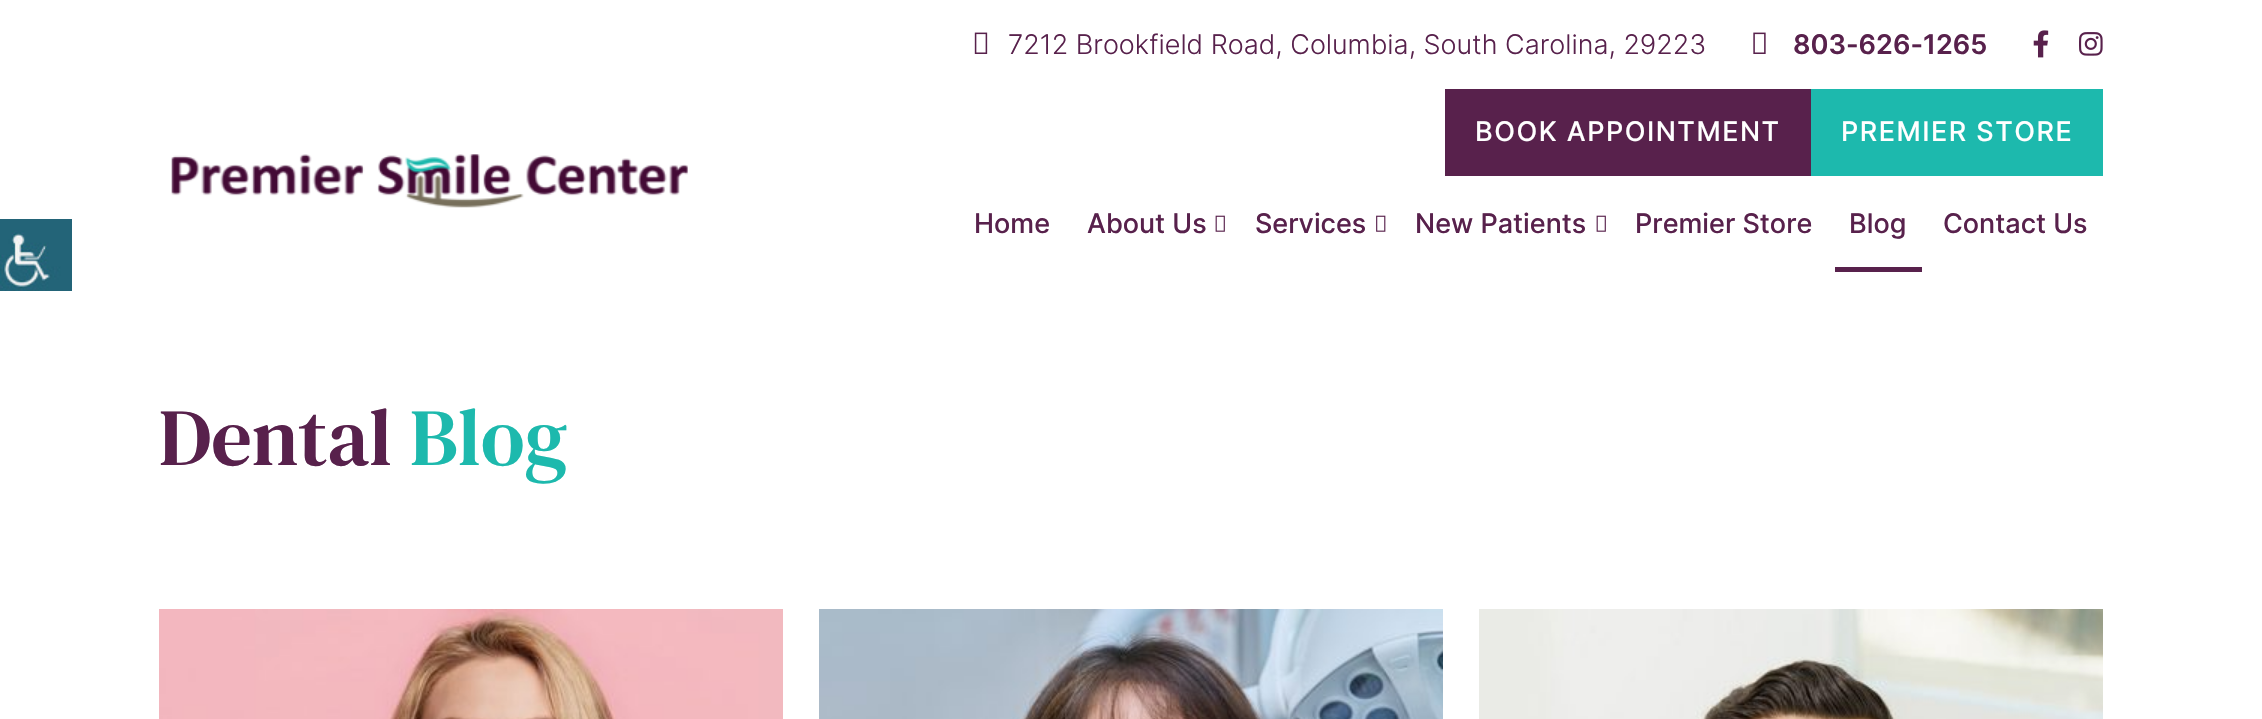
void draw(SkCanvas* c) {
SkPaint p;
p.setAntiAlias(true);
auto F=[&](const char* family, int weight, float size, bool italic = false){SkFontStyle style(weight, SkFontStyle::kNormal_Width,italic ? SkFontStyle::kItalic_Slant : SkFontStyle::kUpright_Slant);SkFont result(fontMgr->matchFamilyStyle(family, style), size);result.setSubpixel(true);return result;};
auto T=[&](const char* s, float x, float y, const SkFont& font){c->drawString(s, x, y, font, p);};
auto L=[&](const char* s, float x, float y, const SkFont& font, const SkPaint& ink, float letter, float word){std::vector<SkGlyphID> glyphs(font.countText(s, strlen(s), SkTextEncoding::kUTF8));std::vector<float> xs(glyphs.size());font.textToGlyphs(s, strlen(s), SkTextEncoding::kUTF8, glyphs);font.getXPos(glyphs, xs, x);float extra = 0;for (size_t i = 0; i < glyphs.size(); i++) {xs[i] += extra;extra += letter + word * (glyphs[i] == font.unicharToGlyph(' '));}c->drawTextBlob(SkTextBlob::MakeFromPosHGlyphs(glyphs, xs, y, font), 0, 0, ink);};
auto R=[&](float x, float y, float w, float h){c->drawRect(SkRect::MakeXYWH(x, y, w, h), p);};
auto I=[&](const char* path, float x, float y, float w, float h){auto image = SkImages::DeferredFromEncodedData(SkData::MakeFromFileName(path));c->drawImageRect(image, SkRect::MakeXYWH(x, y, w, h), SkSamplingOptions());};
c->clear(0xffffffff);
I("1.png",0,219,72,72);
I("2.png",974,32,14,22);
auto f1 = F("Inter",300,27);
p.setColor(0xff58214c);
T("7212 Brookfield Road, Columbia, South Carolina, 29223",1008,54,f1);
I("3.png",1753,32,13,22);
auto f2 = F("Inter",600,27);
T("803-626-1265",1793,54,f2);
I("4.png",2033,30,16,28);
I("5.png",2079,32,24,24);
I("6.png",171,154,517,54);
R(1445,89,366,87);
auto f3 = F("Inter",500,27);
p.setColor(0xffffffff);
L("BOOK APPOINTMENT",1475,141,f3,p,1.5,0);
p.setColor(0xff1db9ad);
R(1811,89,292,87);
p.setColor(0xffffffff);
L("PREMIER STORE",1841,141,f3,p,1.5,0);
p.setColor(0xff58214c);
T("Home",974,233,f3);
T("About Us",1087,233,f3);
I("7.png",1215,215,10,17);
T("Services",1255,233,f3);
I("8.png",1376,215,10,17);
T("New Patients",1415,233,f3);
I("7.png",1596,215,10,17);
T("Premier Store",1635,233,f3);
T("Blog",1849,233,f3);
R(1835,267,87,5);
T("Contact Us",1943,233,f3);
auto f4 = F("DM Serif Text",400,81);
T("Dental",159,465,f4);
p.setColor(0xff1db9ad);
T("Blog",410,465,f4);
I("9.png",159,609,624,110);
I("10.png",819,609,624,110);
I("11.png",1479,609,624,110);
}
